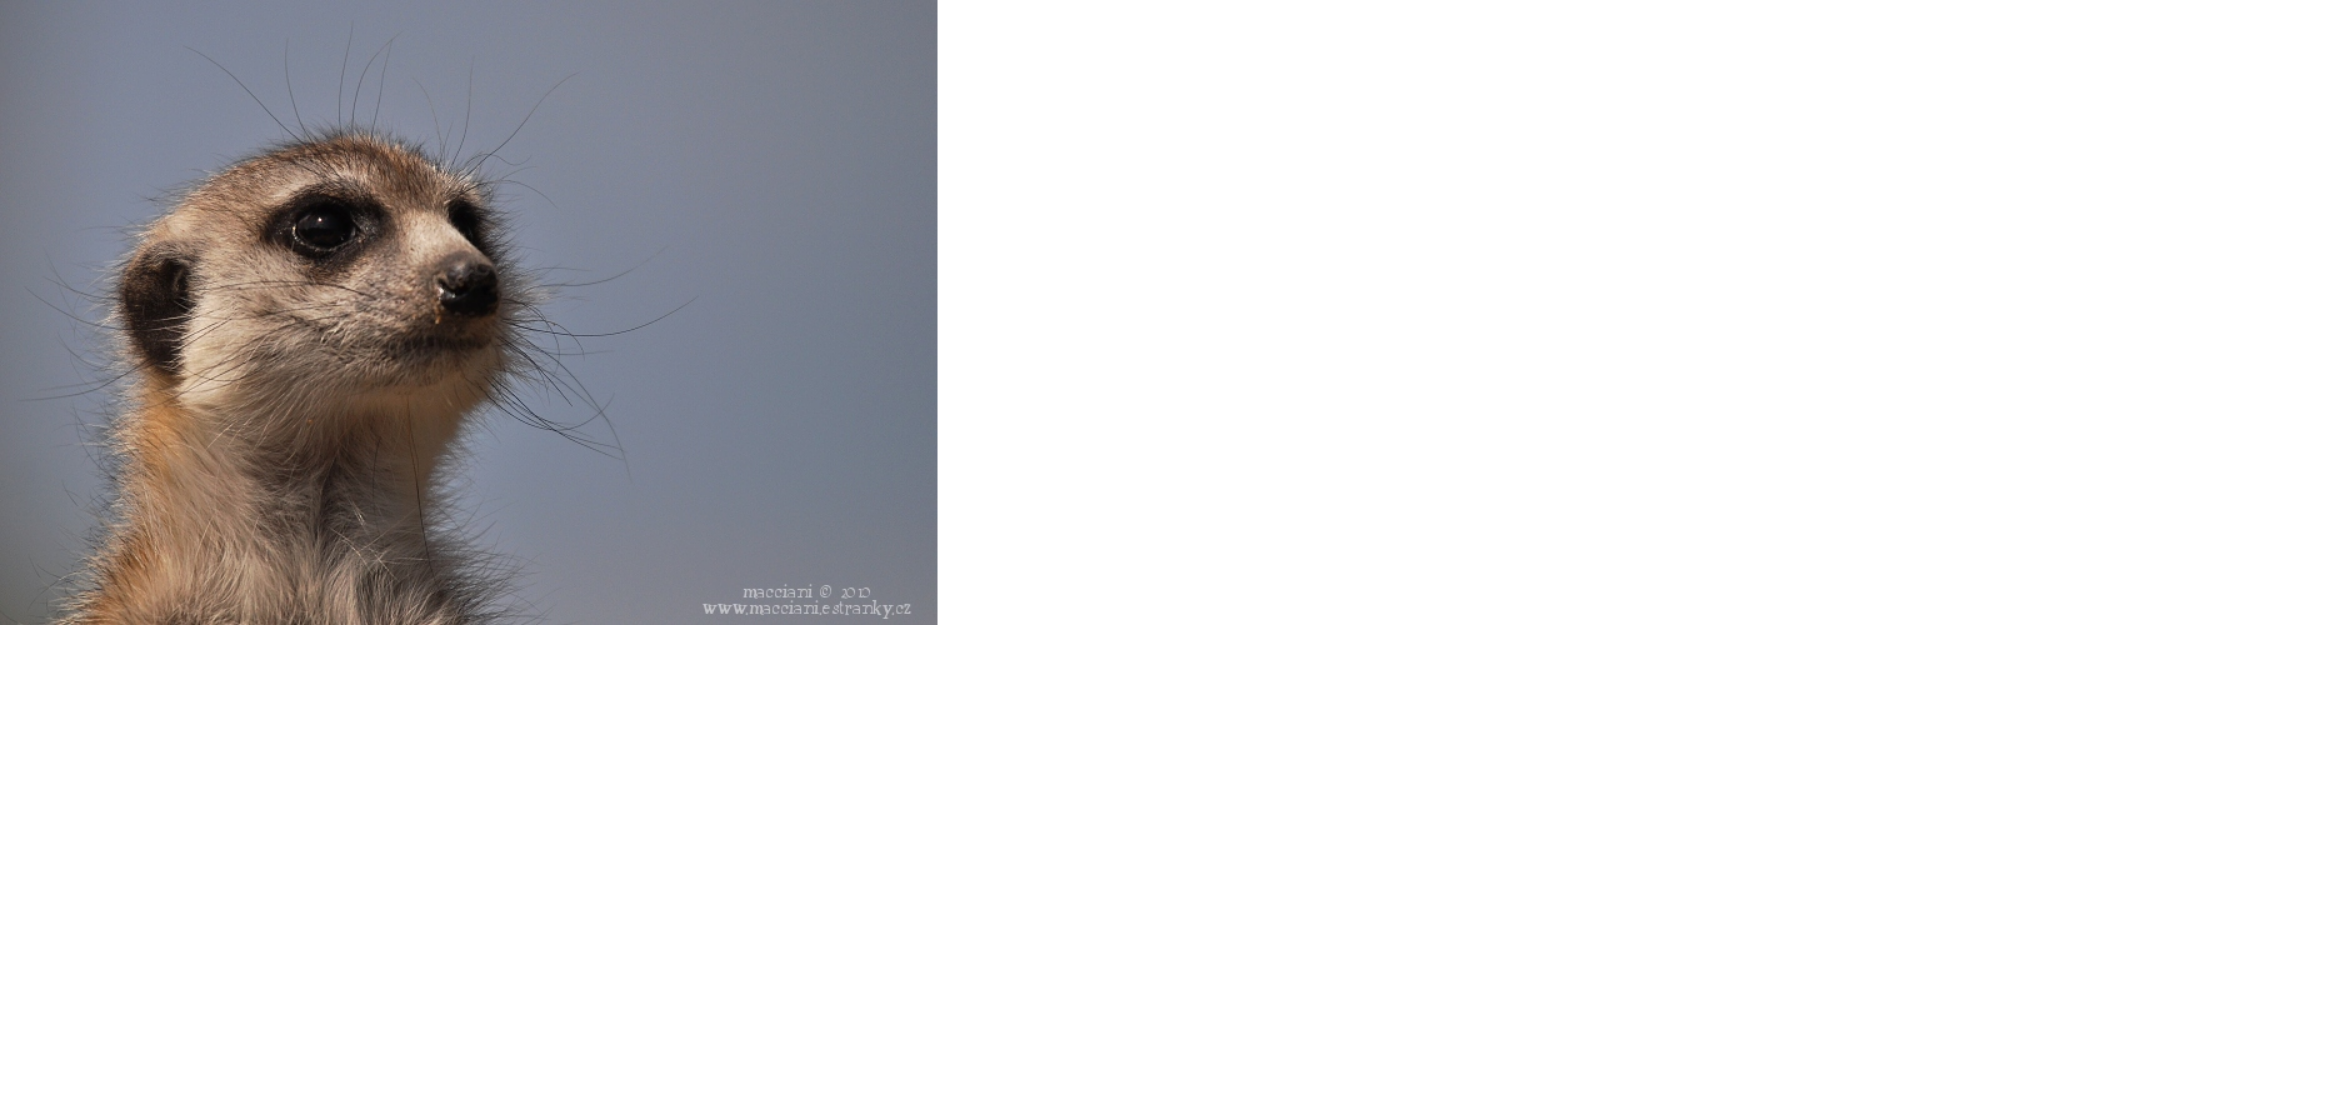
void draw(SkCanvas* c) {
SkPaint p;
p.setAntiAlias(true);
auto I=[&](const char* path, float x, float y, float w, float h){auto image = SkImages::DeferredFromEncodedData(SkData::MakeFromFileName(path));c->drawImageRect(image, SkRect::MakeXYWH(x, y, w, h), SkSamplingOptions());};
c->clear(0xffffffff);
I("1.png",0,0,938,625);
}
